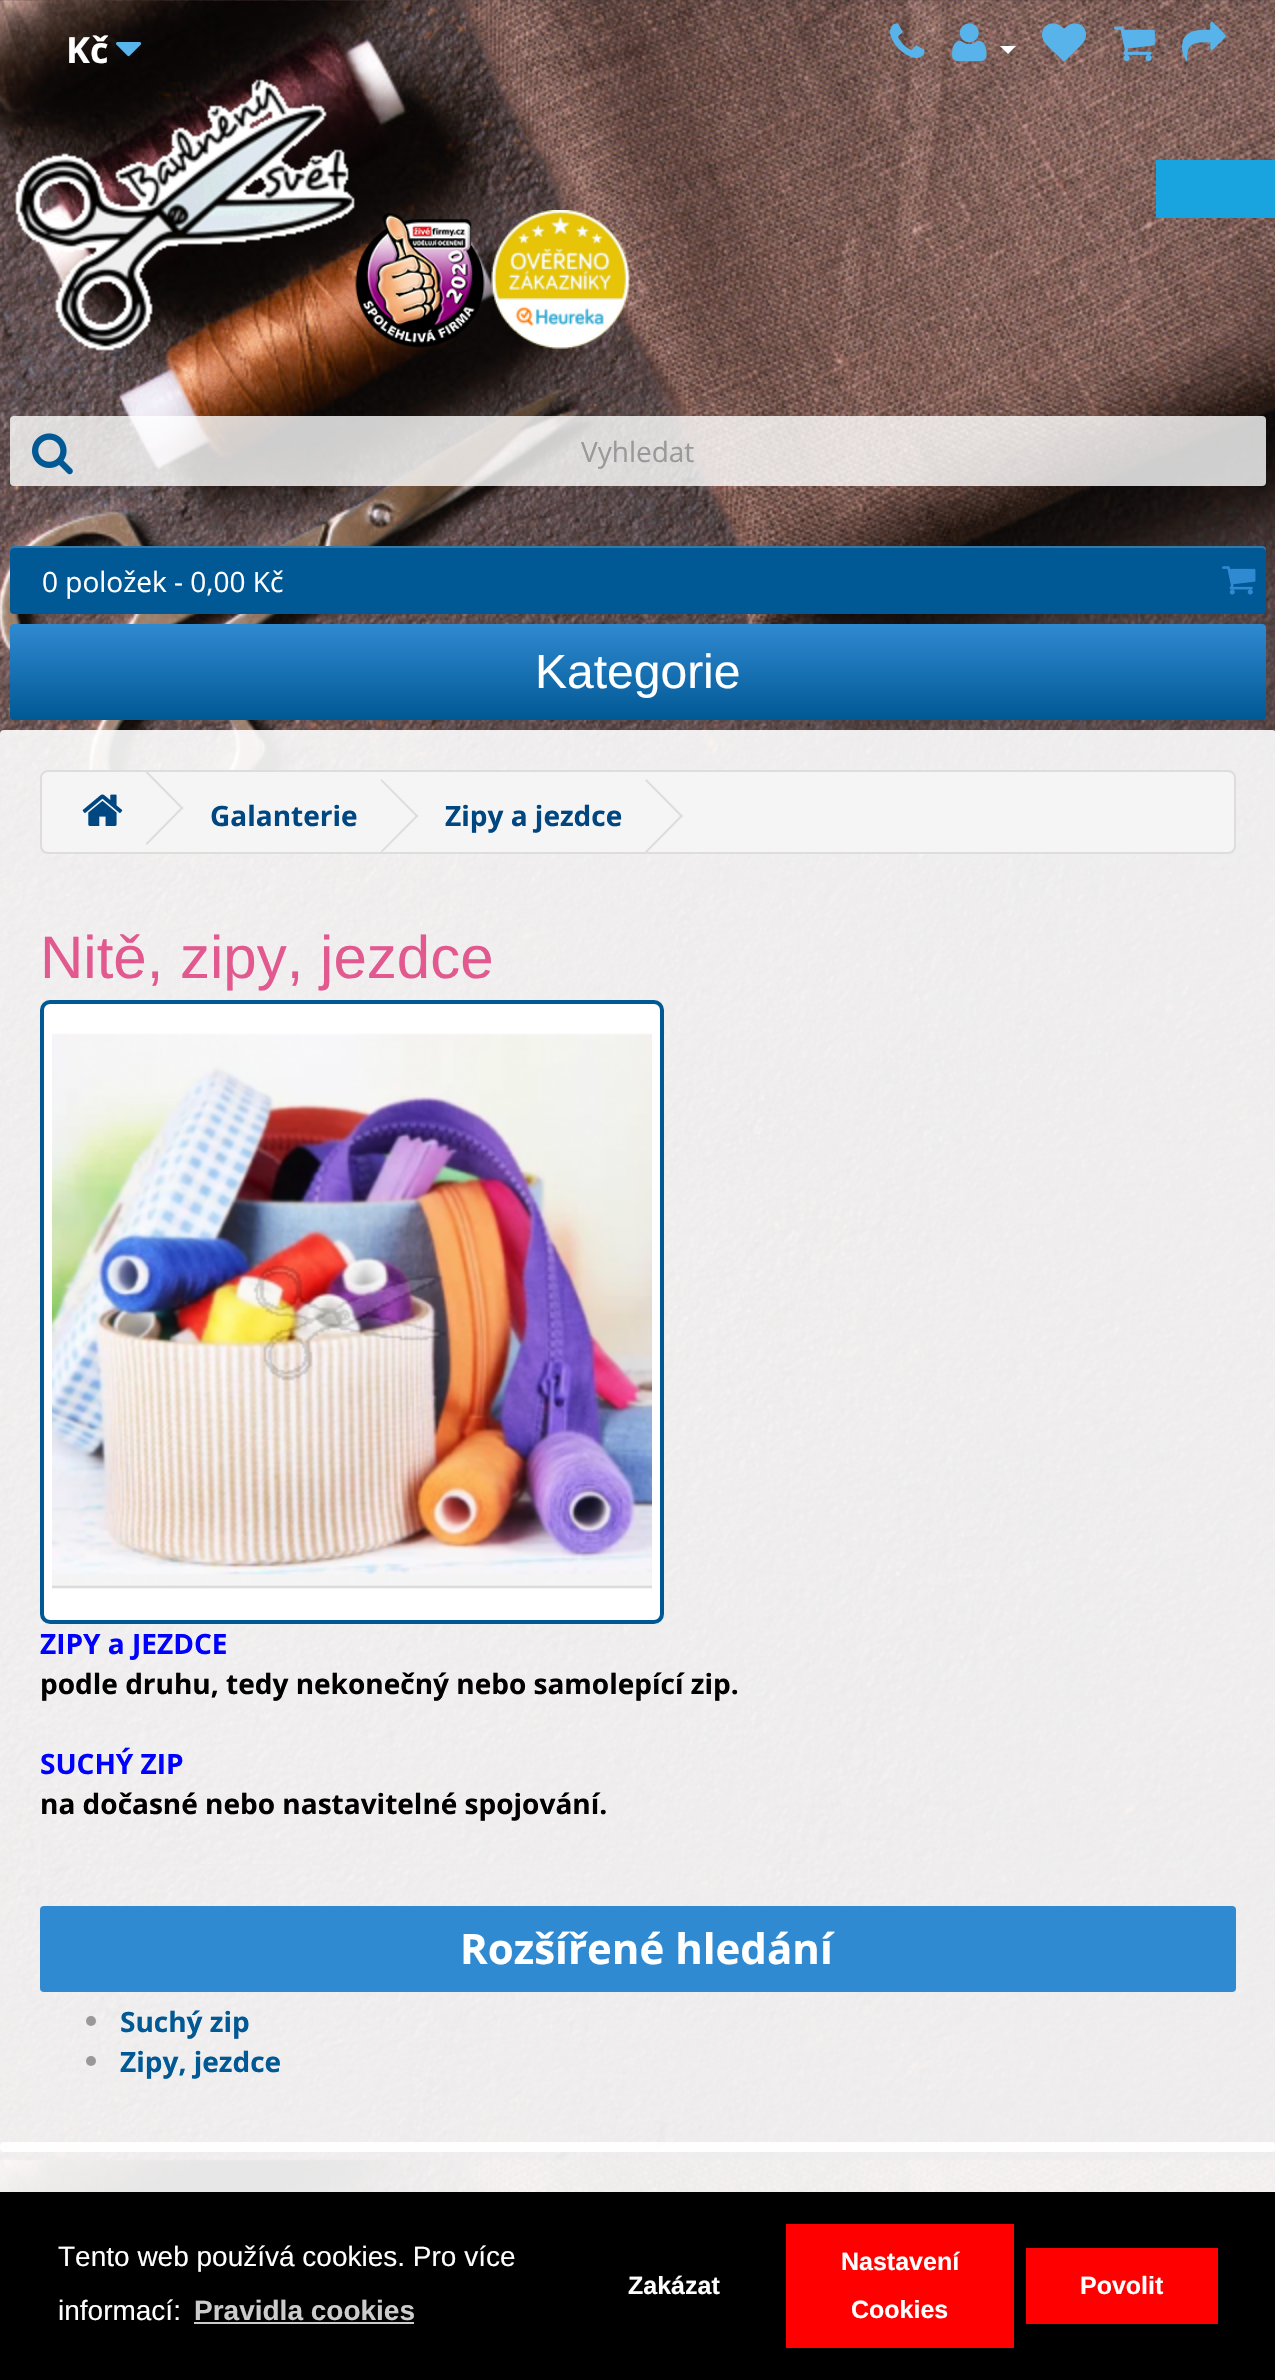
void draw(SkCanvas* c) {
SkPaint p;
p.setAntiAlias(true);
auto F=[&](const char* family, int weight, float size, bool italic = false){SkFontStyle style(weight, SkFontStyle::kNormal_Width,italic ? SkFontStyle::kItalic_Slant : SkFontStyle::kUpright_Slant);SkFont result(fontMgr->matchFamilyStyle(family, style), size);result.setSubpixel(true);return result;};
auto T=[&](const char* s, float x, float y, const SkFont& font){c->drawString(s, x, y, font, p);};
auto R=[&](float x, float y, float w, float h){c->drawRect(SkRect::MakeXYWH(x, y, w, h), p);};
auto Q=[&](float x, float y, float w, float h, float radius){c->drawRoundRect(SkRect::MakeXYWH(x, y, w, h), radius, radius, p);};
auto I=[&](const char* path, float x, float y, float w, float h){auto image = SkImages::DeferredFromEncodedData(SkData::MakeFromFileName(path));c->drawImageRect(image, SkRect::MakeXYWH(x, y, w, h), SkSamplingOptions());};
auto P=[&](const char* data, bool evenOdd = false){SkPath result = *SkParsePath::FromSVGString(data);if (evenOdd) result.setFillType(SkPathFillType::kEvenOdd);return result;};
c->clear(0xffffffff);
I("1.png",0,0,1275,2192);
auto f1 = F("Open Sans",700,36);
p.setColor(0xffffffff);
T("Kč",66,63,f1);
I("2.png",116,42,26,15);
I("3.png",890,23,35,35);
I("4.png",952,23,35,39);
c->drawPath(P("M1000 46h16l-8 8z"),p);
I("5.png",1042,23,44,39);
I("6.png",1114,26,41,36);
I("7.png",1182,21,44,41);
I("10.png",15,79,340,272);
I("8.png",350,213,135,135);
I("9.png",491,210,139,139);
p.setColor(0xccffffff);
Q(10,416,1256,70,4);
I("11.png",32,433,41,42);
auto f2 = F("Open Sans",400,28);
p.setColor(0xff999999);
T("Vyhledat",581,462,f2);
p.setColor(0x0d000000);
p.setMaskFilter(SkMaskFilter::MakeBlur(kNormal_SkBlurStyle, 2));
c->drawRoundRect(SkRect::MakeXYWH(10,548,1256,68),4,4,p);
p.setMaskFilter(nullptr);
p.setColor(0xff005894);
Q(10,546,1256,68,4);
p.setColor(0x33ffffff);
c->drawPath(P("M14 548h1248c2 0 4 2 4 4c0-3 0-6-4-6h-1248c-4 0-4 3-4 6c0-2 2-4 4-4z"),p);
p.setColor(0xffffffff);
T("0 položek - 0,00 Kč",42,592,f2);
I("12.png",1222,566,34,29);
{
const SkColor colors[] = {0xff308ad1,0xff005894};
const float stops[] = {0,1};
const SkPoint ends[] = {{638,624}, {638,720}};
p.setShader(SkGradientShader::MakeLinear(ends, colors, stops, 2, SkTileMode::kClamp));
p.setAlpha(255);
}
Q(10,624,1256,96,4);
auto f3 = F("Liberation Sans",400,48);
p.setShader(nullptr);
p.setColor(0xffffffff);
T("Kategorie",535,688,f3);
p.setColor(0xff19a3df);
R(1156,160,119,58);
p.setColor(0xe6ffffff);
Q(0,730,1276,1422,4);
p.setColor(0xfff5f5f5);
c->drawRoundRect(SkRect::MakeXYWH(41,771,1194,82),7,7,p);
p.setStroke(true);
p.setStrokeWidth(2);
p.setColor(0xffdddddd);
c->drawRoundRect(SkRect::MakeXYWH(41,771,1194,82),7,7,p);
I("13.png",82,794,41,32);
p.setStroke(false);
c->drawPath(P("M145.5 772.5l1.5-1.5l36.5 37l-1.5 1.5z"),p);
c->drawPath(P("M145.5 843.5l36.5-37l1.5 1.5l-36.5 37z"),p);
auto f4 = F("Open Sans",700,28);
p.setColor(0xff004782);
T("Galanterie",210,826,f4);
p.setColor(0xffdddddd);
c->drawPath(P("M380.5 780.5l1-1.5l37 37l-1.5 1.5z"),p);
c->drawPath(P("M380.5 851.5l36.5-37l1.5 1.5l-37 37z"),p);
p.setColor(0xff004782);
T("Zipy a jezdce",445,826,f4);
p.setColor(0xffdddddd);
c->drawPath(P("M645 780.5l1.5-1.5l36.5 37l-1.5 1.5z"),p);
c->drawPath(P("M645 851.5l36.5-37l1.5 1.5l-36.5 37z"),p);
auto f5 = F("Liberation Sans",400,60);
p.setColor(0xffe25990);
T("Nitě, zipy, jezdce",40,978,f5);
p.setColor(0xffffffff);
c->drawRoundRect(SkRect::MakeXYWH(42,1002,620,620),8,8,p);
p.setStroke(true);
p.setStrokeWidth(4);
p.setColor(0xff005894);
c->drawRoundRect(SkRect::MakeXYWH(42,1002,620,620),8,8,p);
I("14.png",52,1033,600,556);
p.setStroke(false);
p.setColor(0xff0000ff);
T("ZIPY a JEZDCE",40,1654,f4);
p.setColor(0xff000000);
T("podle druhu, tedy nekonečný nebo samolepící zip.",40,1694,f4);
p.setColor(0xff0000ff);
T("SUCHÝ ZIP",40,1774,f4);
p.setColor(0xff000000);
T("na dočasné nebo nastavitelné spojování.",40,1814,f4);
p.setColor(0xffeeeeee);
R(58,1864,1074,2);
p.setColor(0xff308ad1);
Q(40,1906,1196,86,4);
auto f6 = F("Open Sans",700,42);
p.setColor(0xffffffff);
T("Rozšířené hledání",460,1964,f6);
p.setColor(0xff999999);
c->drawCircle(91,2021,5,p);
p.setColor(0xff005894);
T("Suchý zip",120,2032,f4);
p.setColor(0xff999999);
c->drawCircle(91,2061,5,p);
p.setColor(0xff005894);
T("Zipy, jezdce",120,2072,f4);
p.setColor(0xe6ffffff);
Q(0,2142,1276,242,4);
p.setColor(0xff000000);
R(0,2192,1275,188);
auto f7 = F("Liberation Sans",400,28);
p.setColor(0xffffffff);
T("Tento web používá cookies. Pro více",58,2266,f7);
T("informací:",58,2320,f7);
auto f8 = F("Liberation Sans",700,28);
p.setColor(0xffcccccc);
T("Pravidla cookies",194,2320,f8);
R(194,2322,220,2);
auto f9 = F("Liberation Sans",700,25);
p.setColor(0xffffffff);
T("Zakázat",628,2294,f9);
p.setColor(0xffff0000);
R(786,2224,228,124);
p.setColor(0xffffffff);
T("Nastavení",841,2270,f9);
T("Cookies",851,2318,f9);
p.setColor(0xffff0000);
R(1026,2248,192,76);
p.setColor(0xffffffff);
T("Povolit",1080,2294,f9);
}
